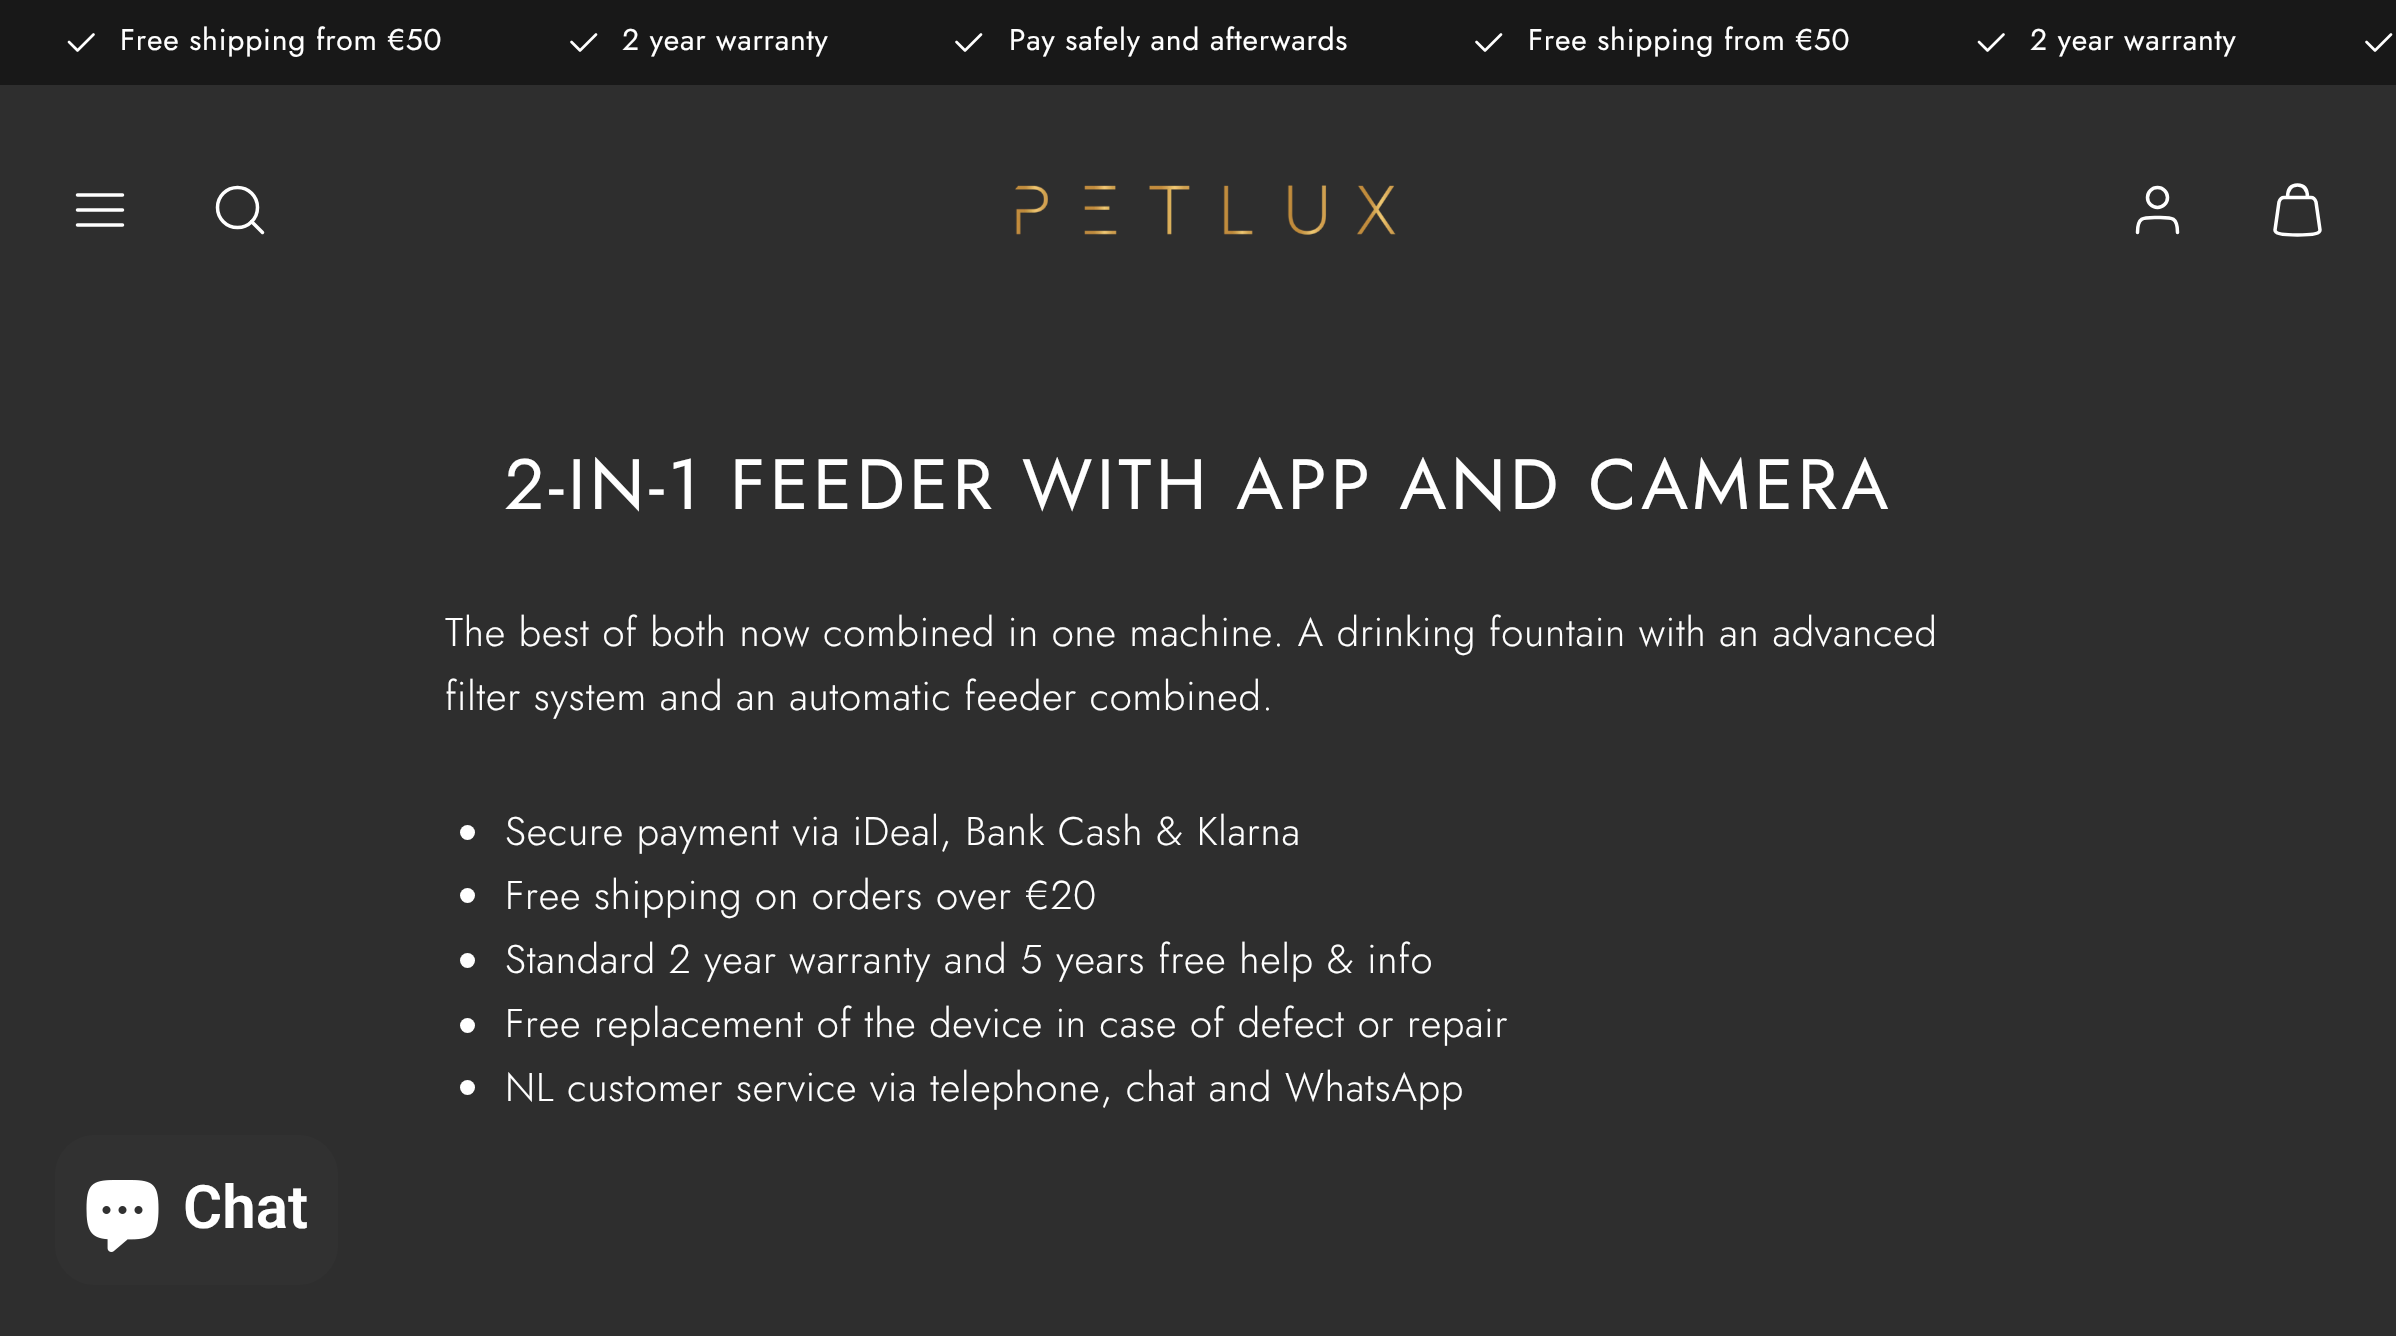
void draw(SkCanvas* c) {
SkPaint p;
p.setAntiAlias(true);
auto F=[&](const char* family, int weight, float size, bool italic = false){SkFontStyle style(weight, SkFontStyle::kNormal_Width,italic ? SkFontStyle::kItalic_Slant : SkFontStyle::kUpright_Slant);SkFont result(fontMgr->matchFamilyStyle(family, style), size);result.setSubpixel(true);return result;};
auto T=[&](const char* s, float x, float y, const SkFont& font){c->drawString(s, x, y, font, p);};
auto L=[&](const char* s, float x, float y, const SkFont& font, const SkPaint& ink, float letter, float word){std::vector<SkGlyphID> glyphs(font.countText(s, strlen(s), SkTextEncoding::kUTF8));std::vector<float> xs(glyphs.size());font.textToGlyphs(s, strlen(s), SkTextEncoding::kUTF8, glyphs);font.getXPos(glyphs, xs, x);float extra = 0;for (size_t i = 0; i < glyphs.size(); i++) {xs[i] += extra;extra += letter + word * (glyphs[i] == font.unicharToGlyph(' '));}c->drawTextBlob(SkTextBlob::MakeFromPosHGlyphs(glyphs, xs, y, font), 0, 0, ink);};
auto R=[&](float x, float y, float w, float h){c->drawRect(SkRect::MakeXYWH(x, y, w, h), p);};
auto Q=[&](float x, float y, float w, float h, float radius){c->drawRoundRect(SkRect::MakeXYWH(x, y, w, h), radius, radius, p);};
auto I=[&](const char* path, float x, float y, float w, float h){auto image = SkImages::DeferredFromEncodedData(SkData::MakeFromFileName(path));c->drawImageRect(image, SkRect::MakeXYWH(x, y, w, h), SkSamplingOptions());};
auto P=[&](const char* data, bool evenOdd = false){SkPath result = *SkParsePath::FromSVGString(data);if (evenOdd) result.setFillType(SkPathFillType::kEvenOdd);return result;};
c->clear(0xff2e2e2e);
p.setColor(0xff181818);
R(0,0,2396,85);
I("1.png",67,33,28,19);
auto f1 = F("Jost",400,30);
p.setColor(0xffffffff);
L("Free shipping from €50",120,50,f1,p,.8,0);
I("2.png",570,33,28,19);
L("2 year warranty",622,50,f1,p,.8,0);
I("2.png",955,33,28,19);
L("Pay safely and afterwards",1009,50,f1,p,.8,0);
I("2.png",1475,33,28,19);
L("Free shipping from €50",1528,50,f1,p,.8,0);
I("1.png",1977,33,28,19);
L("2 year warranty",2030,50,f1,p,.8,0);
I("2.png",2365,33,28,19);
p.setStroke(true);
p.setStrokeWidth(3.5);
p.setStrokeCap(SkPaint::kRound_Cap);
p.setStrokeJoin(SkPaint::kRound_Join);
c->drawPath(P("M77.5 210h45m-45-15h45m-45 30h45"),p);
p.setStrokeCap(SkPaint::kButt_Cap);
p.setStrokeJoin(SkPaint::kMiter_Join);
c->drawCircle(237.5,207.5,20,p);
p.setStrokeCap(SkPaint::kRound_Cap);
p.setStrokeJoin(SkPaint::kRound_Join);
c->drawPath(P("M262.5 232.5l-11-11"),p);
I("3.png",1015,185,381,50);
c->drawPath(P("M2177.5 232.5c0-16-6-15-20-15c-14 0-20-1-20 15"),p);
p.setStrokeCap(SkPaint::kButt_Cap);
p.setStrokeJoin(SkPaint::kMiter_Join);
c->drawCircle(2157.5,197.5,10,p);
p.setStrokeCap(SkPaint::kRound_Cap);
p.setStrokeJoin(SkPaint::kRound_Join);
c->drawPath(P("M2284 197.5c-2 0-4 1.5-5 4.5l-4 28c0 3 5 5 22.5 5c17.5 0 22.5-2 22.5-5l-4-28c-1-3-3-4.5-5-4.5zm3.5 0c0-5.5 1.5-12.5 10-12.5c8.5 0 10 7 10 12.5"),p);
auto f2 = F("Jost",400,71.1);
p.setStroke(false);
L("2-IN-1 FEEDER WITH APP AND CAMERA",504,509,f2,p,4.25,0);
auto f3 = F("Jost",300,40);
L("The best of both now combined in one machine. A drinking fountain with an advanced",445,646,f3,p,.8,0);
L("filter system and an automatic feeder combined.",445,710,f3,p,.8,0);
c->drawCircle(467.5,832.5,7.5,p);
L("Secure payment via iDeal, Bank Cash & Klarna",505,845,f3,p,.8,0);
c->drawCircle(467.5,895.5,7.5,p);
L("Free shipping on orders over €20",505,909,f3,p,.8,0);
c->drawCircle(467.5,960.5,7.5,p);
L("Standard 2 year warranty and 5 years free help & info",505,973,f3,p,.8,0);
c->drawCircle(467.5,1025.5,7.5,p);
L("Free replacement of the device in case of defect or repair",505,1037,f3,p,.8,0);
c->drawCircle(467.5,1087.5,7.5,p);
L("NL customer service via telephone, chat and WhatsApp",505,1101,f3,p,.8,0);
p.setColor(0xff313131);
Q(55,1135,283,150,40);
I("4.png",86,1180,73,72);
auto f4 = F("Roboto",600,60);
p.setColor(0xffffffff);
T("Chat",183,1228,f4);
}
